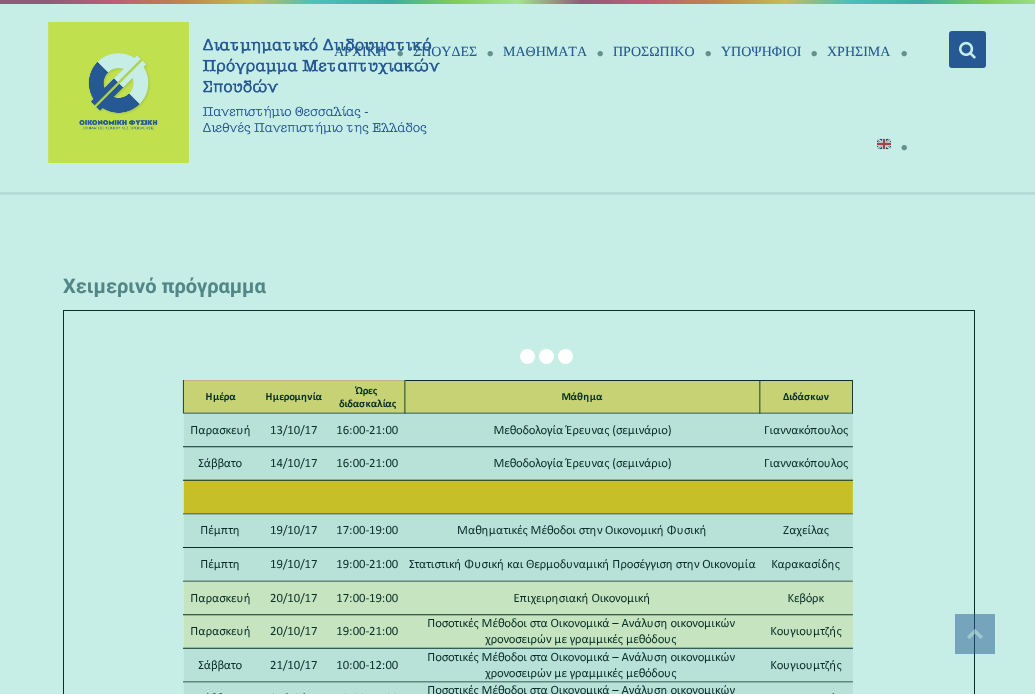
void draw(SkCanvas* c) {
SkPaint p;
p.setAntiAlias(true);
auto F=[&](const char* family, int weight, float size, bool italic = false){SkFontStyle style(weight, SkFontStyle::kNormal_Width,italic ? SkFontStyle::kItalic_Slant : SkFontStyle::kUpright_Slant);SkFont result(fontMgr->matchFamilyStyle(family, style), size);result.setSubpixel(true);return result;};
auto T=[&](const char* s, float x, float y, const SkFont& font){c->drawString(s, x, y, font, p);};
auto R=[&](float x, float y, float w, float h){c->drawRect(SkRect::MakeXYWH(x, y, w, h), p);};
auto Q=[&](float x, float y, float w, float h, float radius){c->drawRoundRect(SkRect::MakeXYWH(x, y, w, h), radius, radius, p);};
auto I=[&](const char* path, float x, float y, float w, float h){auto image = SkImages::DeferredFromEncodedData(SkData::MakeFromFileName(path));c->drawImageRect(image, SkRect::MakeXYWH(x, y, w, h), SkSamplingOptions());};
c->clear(0xffc6eee6);
{
const SkColor colors[] = {0xff8f5c77,0xffbc5d79,0xffbf8849,0xffc6bb58,0xff4dc0b9,0xff3dada4,0xff80cb58,0xffa3e391,0xff8f5c77,0xffbc5d79,0xffbf8849,0xffc6bb58,0xff4dc0b9,0xff3dada4,0xff80cb58,0xffa3e391};
const float stops[] = {.06,.12,.19,.25,.31,.38,.44,.5,.56,.62,.69,.75,.81,.88,.94,1};
const SkPoint ends[] = {{-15,2}, {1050,2}};
p.setShader(SkGradientShader::MakeLinear(ends, colors, stops, 16, SkTileMode::kClamp));
p.setAlpha(255);
}
R(0,0,1035,4);
p.setShader(nullptr);
p.setColor(0xffb3ddd6);
R(0,192,1035,3);
I("1.png",48,22,392,141);
auto f1 = F("Liberation Serif",400,14);
p.setColor(0xff265993);
T("ΑΡΧΙΚΗ",334,56,f1);
auto f2 = F("Lato",300,18);
p.setColor(0xff65918b);
T("•",395,59,f2);
p.setColor(0xff265993);
T("ΣΠΟΥΔΕΣ",413,56,f1);
p.setColor(0xff65918b);
T("•",485,59,f2);
p.setColor(0xff265993);
T("ΜΑΘΗΜΑΤΑ",503,56,f1);
p.setColor(0xff65918b);
T("•",595,59,f2);
p.setColor(0xff265993);
T("ΠΡΟΣΩΠΙΚΟ",613,56,f1);
p.setColor(0xff65918b);
T("•",703,59,f2);
p.setColor(0xff265993);
T("ΥΠΟΨΗΦΙΟΙ",721,56,f1);
p.setColor(0xff65918b);
T("•",809,59,f2);
p.setColor(0xff265993);
T("ΧΡΗΣΙΜΑ",827,56,f1);
p.setColor(0xff65918b);
T("•",899,59,f2);
I("2.png",877,138,14,12);
T("•",899,153,f2);
p.setColor(0xff265993);
Q(949,31,37,37,3);
I("3.png",959,41,17,18);
auto f3 = F("Roboto",700,20);
p.setColor(0xff538787);
T("Χειμερινό πρόγραμμα",63,293,f3);
p.setStroke(true);
p.setStrokeWidth(1);
p.setColor(0xff072f27);
c->drawRect(SkRect::MakeXYWH(63.5,310.5,911,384),p);
I("4.png",182,380,671,314);
p.setStroke(false);
p.setColor(0xffffffff);
c->drawCircle(527.5,356.5,7.5,p);
c->drawCircle(546.5,356.5,7.5,p);
c->drawCircle(565.5,356.5,7.5,p);
p.setColor(0x80265993);
R(955,614,40,40);
I("5.png",967,629,16,10);
}
